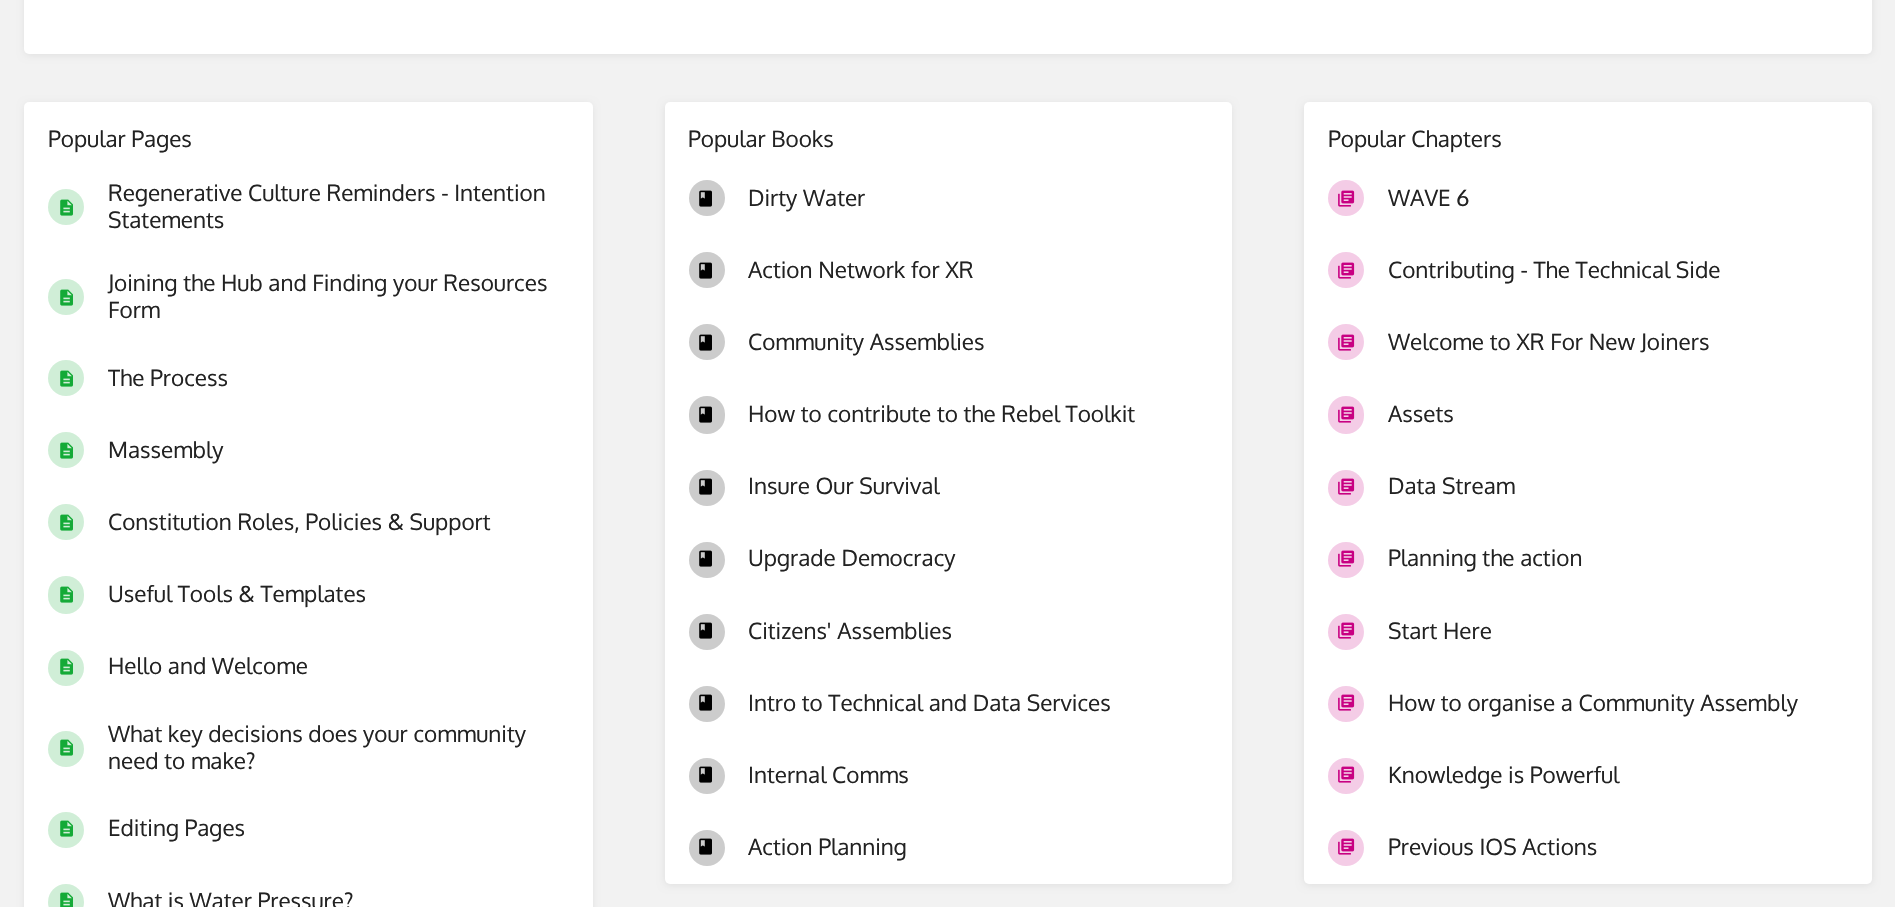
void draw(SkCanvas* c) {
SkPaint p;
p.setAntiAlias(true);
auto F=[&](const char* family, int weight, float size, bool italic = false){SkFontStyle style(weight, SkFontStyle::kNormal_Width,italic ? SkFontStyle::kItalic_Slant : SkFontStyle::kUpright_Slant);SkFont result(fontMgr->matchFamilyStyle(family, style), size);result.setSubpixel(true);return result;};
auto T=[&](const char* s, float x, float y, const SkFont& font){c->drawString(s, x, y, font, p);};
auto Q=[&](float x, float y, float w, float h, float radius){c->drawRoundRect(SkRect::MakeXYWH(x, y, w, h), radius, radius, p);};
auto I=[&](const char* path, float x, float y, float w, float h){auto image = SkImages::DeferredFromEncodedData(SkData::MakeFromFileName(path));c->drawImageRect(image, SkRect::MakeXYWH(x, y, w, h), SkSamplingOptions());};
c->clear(0xfff2f2f2);
p.setColor(0x1a000000);
p.setMaskFilter(SkMaskFilter::MakeBlur(kNormal_SkBlurStyle, 4.5));
c->drawRoundRect(SkRect::MakeXYWH(26,-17,1845,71),3,3,p);
p.setMaskFilter(nullptr);
p.setColor(0xffffffff);
Q(24,-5,1848,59,5);
p.setColor(0x1a000000);
p.setMaskFilter(SkMaskFilter::MakeBlur(kNormal_SkBlurStyle, 4.5));
c->drawRoundRect(SkRect::MakeXYWH(26,105,565,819),3,3,p);
p.setMaskFilter(nullptr);
p.setColor(0xffffffff);
Q(24,102,569,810,5);
auto f1 = F("Oxygen",400,22.5);
p.setColor(0xff222222);
T("Popular Pages",48,147,f1);
I("1.png",60,199,13,17);
p.setColor(0x3314aa37);
c->drawCircle(66,207,18,p);
p.setColor(0xff222222);
T("Regenerative Culture Reminders - Intention",108,201,f1);
T("Statements",108,228,f1);
I("1.png",60,289,13,17);
p.setColor(0x3314aa37);
c->drawCircle(66,297,18,p);
p.setColor(0xff222222);
T("Joining the Hub and Finding your Resources",108,291,f1);
T("Form",108,318,f1);
I("1.png",60,370,13,17);
p.setColor(0x3314aa37);
c->drawCircle(66,378,18,p);
p.setColor(0xff222222);
T("The Process",108,386,f1);
I("1.png",60,442,13,17);
p.setColor(0x3314aa37);
c->drawCircle(66,450,18,p);
p.setColor(0xff222222);
T("Massembly",108,458,f1);
I("1.png",60,514,13,17);
p.setColor(0x3314aa37);
c->drawCircle(66,522,18,p);
p.setColor(0xff222222);
T("Constitution Roles, Policies & Support",108,530,f1);
I("1.png",60,586,13,17);
p.setColor(0x3314aa37);
Q(48,576,36,38,18);
p.setColor(0xff222222);
T("Useful Tools & Templates",108,602,f1);
I("1.png",60,658,13,17);
p.setColor(0x3314aa37);
c->drawCircle(66,668,18,p);
p.setColor(0xff222222);
T("Hello and Welcome",108,674,f1);
I("1.png",60,739,13,17);
p.setColor(0x3314aa37);
c->drawCircle(66,749,18,p);
p.setColor(0xff222222);
T("What key decisions does your community",108,742,f1);
T("need to make?",108,769,f1);
I("1.png",60,820,13,17);
p.setColor(0x3314aa37);
c->drawCircle(66,830,18,p);
p.setColor(0xff222222);
T("Editing Pages",108,836,f1);
I("2.png",60,892,13,15);
p.setColor(0x3314aa37);
c->drawCircle(66,902,18,p);
p.setColor(0xff222222);
T("What is Water Pressure?",108,909,f1);
p.setColor(0x1a000000);
p.setMaskFilter(SkMaskFilter::MakeBlur(kNormal_SkBlurStyle, 4.5));
c->drawRoundRect(SkRect::MakeXYWH(666,105,564,779),3,3,p);
p.setMaskFilter(nullptr);
p.setColor(0xffffffff);
Q(665,102,567,782,5);
p.setColor(0xff222222);
T("Popular Books",688,147,f1);
I("3.png",699,190,13,17);
p.setColor(0x33000000);
c->drawCircle(707,198,18,p);
p.setColor(0xff222222);
T("Dirty Water",748,206,f1);
I("3.png",699,262,13,17);
p.setColor(0x33000000);
c->drawCircle(707,270,18,p);
p.setColor(0xff222222);
T("Action Network for XR",748,278,f1);
I("3.png",699,334,13,17);
p.setColor(0x33000000);
c->drawCircle(707,342,18,p);
p.setColor(0xff222222);
T("Community Assemblies",748,350,f1);
I("3.png",699,406,13,17);
p.setColor(0x33000000);
Q(689,396,36,38,18);
p.setColor(0xff222222);
T("How to contribute to the Rebel Toolkit",748,422,f1);
I("3.png",699,478,13,17);
p.setColor(0x33000000);
c->drawCircle(707,488,18,p);
p.setColor(0xff222222);
T("Insure Our Survival",748,494,f1);
I("3.png",699,550,13,17);
p.setColor(0x33000000);
c->drawCircle(707,560,18,p);
p.setColor(0xff222222);
T("Upgrade Democracy",748,566,f1);
I("3.png",699,622,13,17);
p.setColor(0x33000000);
c->drawCircle(707,632,18,p);
p.setColor(0xff222222);
T("Citizens' Assemblies",748,639,f1);
I("3.png",699,694,13,17);
p.setColor(0x33000000);
c->drawCircle(707,704,18,p);
p.setColor(0xff222222);
T("Intro to Technical and Data Services",748,711,f1);
I("3.png",699,766,13,17);
p.setColor(0x33000000);
c->drawCircle(707,776,18,p);
p.setColor(0xff222222);
T("Internal Comms",748,783,f1);
I("3.png",699,838,13,17);
p.setColor(0x33000000);
c->drawCircle(707,848,18,p);
p.setColor(0xff222222);
T("Action Planning",748,855,f1);
p.setColor(0x1a000000);
p.setMaskFilter(SkMaskFilter::MakeBlur(kNormal_SkBlurStyle, 4.5));
c->drawRoundRect(SkRect::MakeXYWH(1305,105,566,779),3,3,p);
p.setMaskFilter(nullptr);
p.setColor(0xffffffff);
Q(1304,102,568,782,5);
p.setColor(0xff222222);
T("Popular Chapters",1328,147,f1);
I("4.png",1338,190,17,17);
p.setColor(0x33c80082);
c->drawCircle(1346,198,18,p);
p.setColor(0xff222222);
T("WAVE 6",1388,206,f1);
I("4.png",1338,262,17,17);
p.setColor(0x33c80082);
c->drawCircle(1346,270,18,p);
p.setColor(0xff222222);
T("Contributing - The Technical Side",1388,278,f1);
I("4.png",1338,334,17,17);
p.setColor(0x33c80082);
c->drawCircle(1346,342,18,p);
p.setColor(0xff222222);
T("Welcome to XR For New Joiners",1388,350,f1);
I("4.png",1338,406,17,17);
p.setColor(0x33c80082);
Q(1328,396,36,38,18);
p.setColor(0xff222222);
T("Assets",1388,422,f1);
I("4.png",1338,478,17,17);
p.setColor(0x33c80082);
c->drawCircle(1346,488,18,p);
p.setColor(0xff222222);
T("Data Stream",1388,494,f1);
I("4.png",1338,550,17,17);
p.setColor(0x33c80082);
c->drawCircle(1346,560,18,p);
p.setColor(0xff222222);
T("Planning the action",1388,566,f1);
I("4.png",1338,622,17,17);
p.setColor(0x33c80082);
c->drawCircle(1346,632,18,p);
p.setColor(0xff222222);
T("Start Here",1388,639,f1);
I("4.png",1338,694,17,17);
p.setColor(0x33c80082);
c->drawCircle(1346,704,18,p);
p.setColor(0xff222222);
T("How to organise a Community Assembly",1388,711,f1);
I("4.png",1338,766,17,17);
p.setColor(0x33c80082);
c->drawCircle(1346,776,18,p);
p.setColor(0xff222222);
T("Knowledge is Powerful",1388,783,f1);
I("4.png",1338,838,17,17);
p.setColor(0x33c80082);
c->drawCircle(1346,848,18,p);
p.setColor(0xff222222);
T("Previous IOS Actions",1388,855,f1);
}
